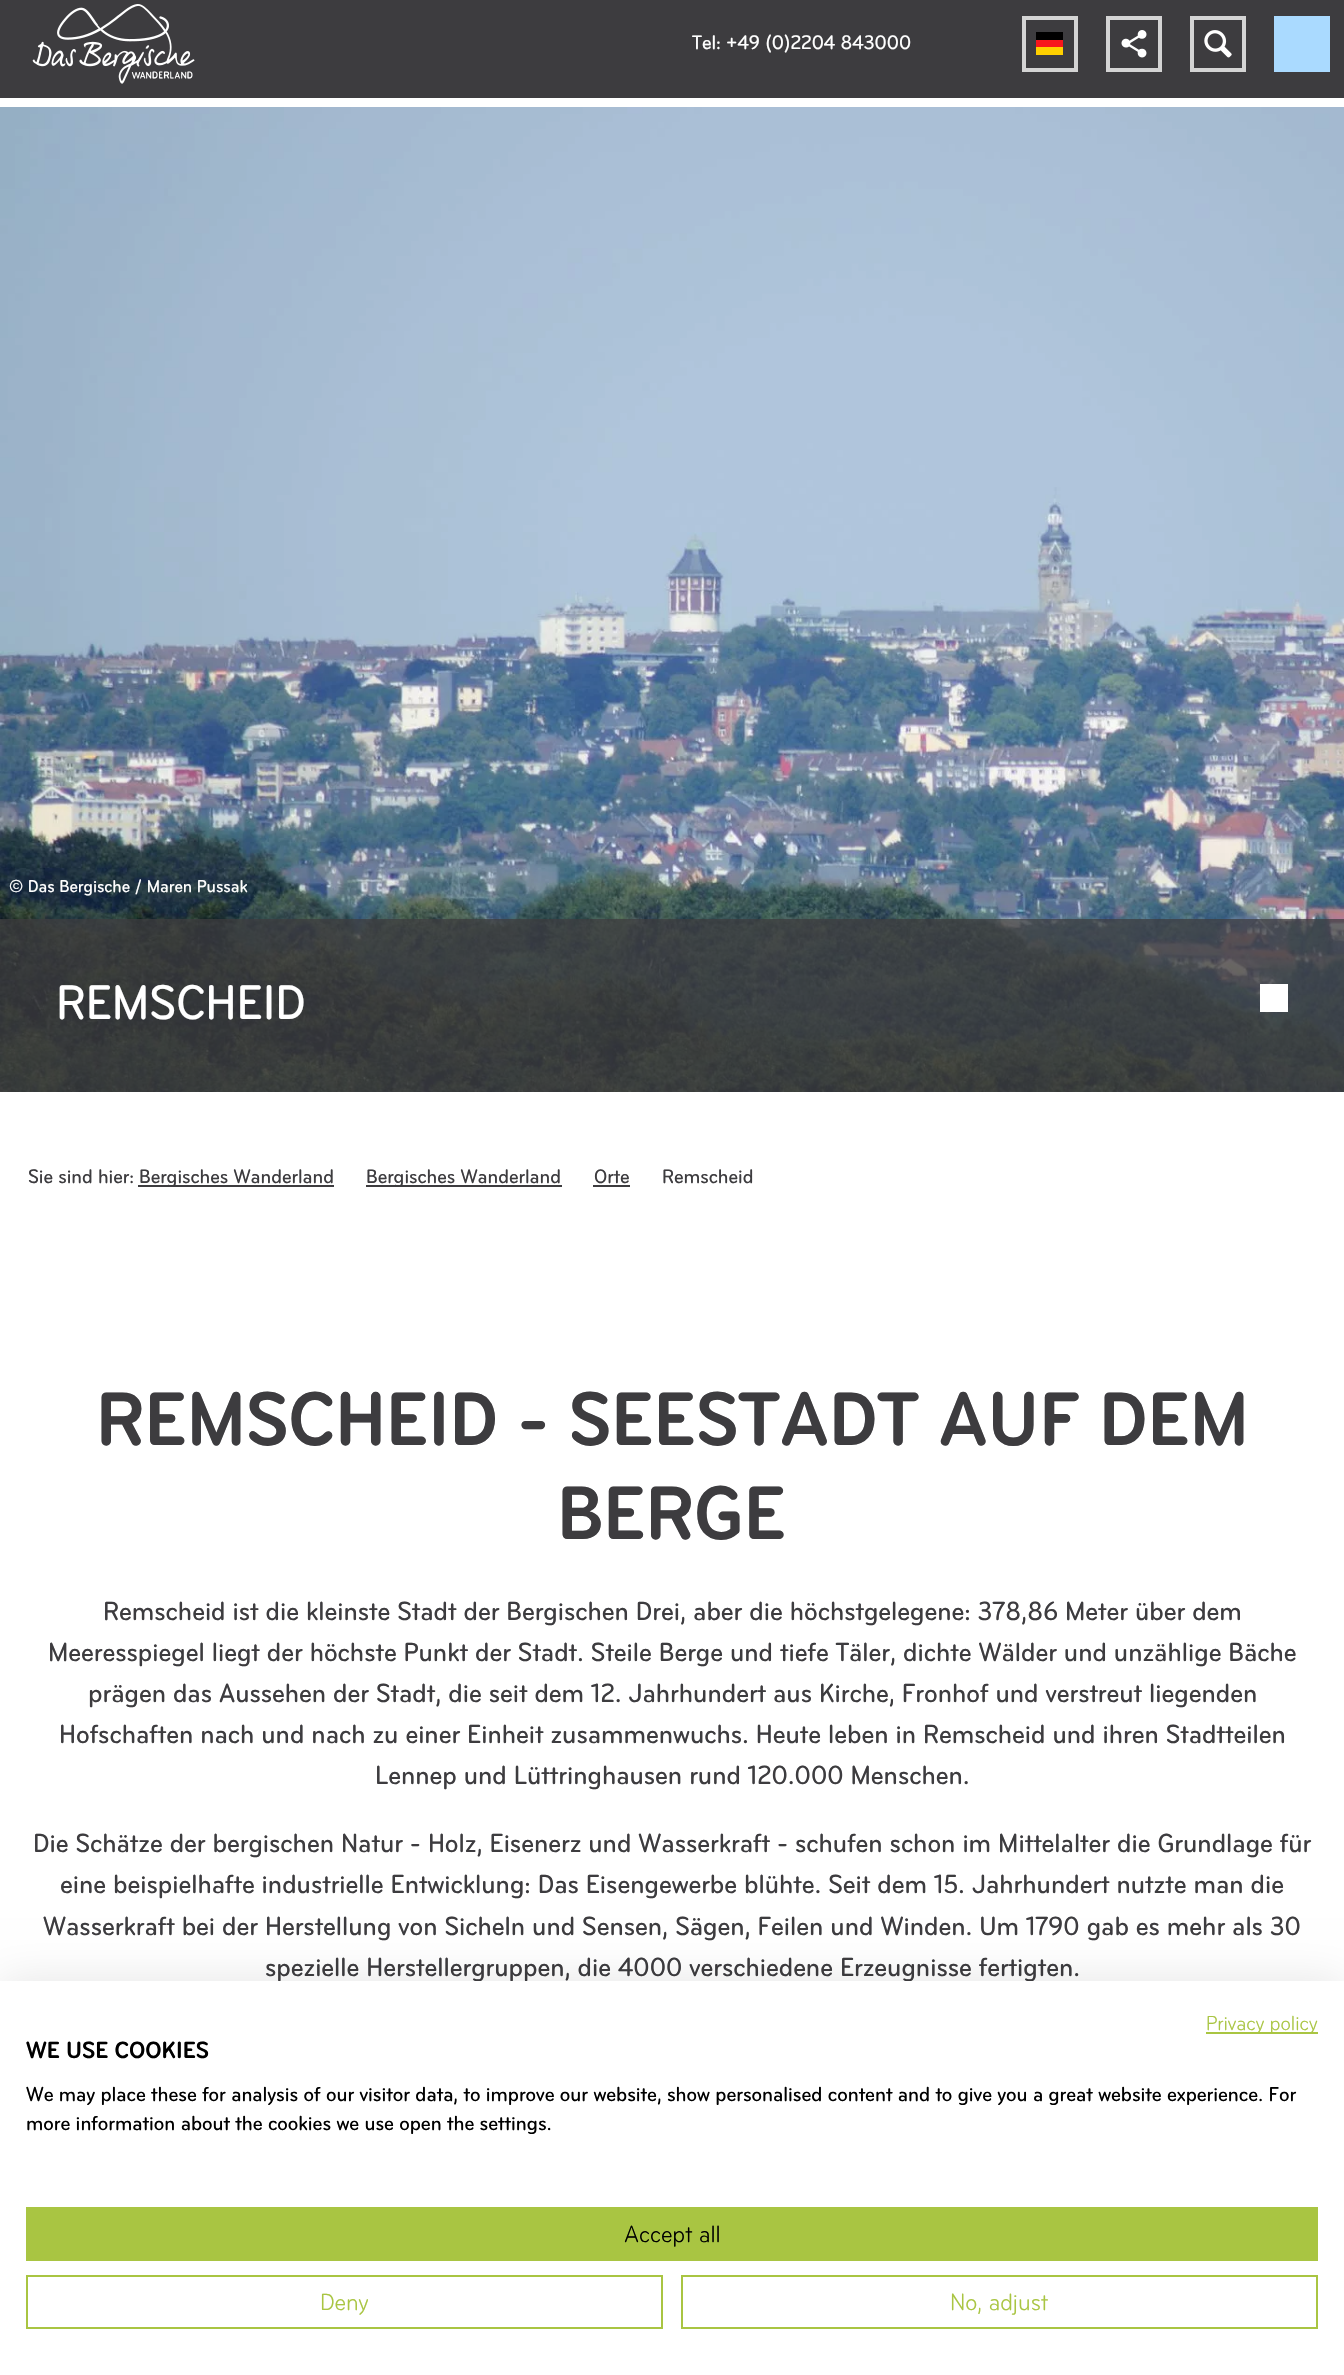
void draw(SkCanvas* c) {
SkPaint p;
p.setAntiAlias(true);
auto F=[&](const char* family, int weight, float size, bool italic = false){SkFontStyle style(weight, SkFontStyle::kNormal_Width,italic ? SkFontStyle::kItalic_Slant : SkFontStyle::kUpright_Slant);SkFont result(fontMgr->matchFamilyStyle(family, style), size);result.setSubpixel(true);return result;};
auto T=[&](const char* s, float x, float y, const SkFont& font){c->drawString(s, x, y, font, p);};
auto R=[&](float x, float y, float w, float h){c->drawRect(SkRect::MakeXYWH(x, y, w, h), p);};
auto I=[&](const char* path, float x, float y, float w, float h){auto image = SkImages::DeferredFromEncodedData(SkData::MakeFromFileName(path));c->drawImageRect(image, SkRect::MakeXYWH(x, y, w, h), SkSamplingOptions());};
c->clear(0xffffffff);
p.setColor(0xff3d3c3f);
R(0,0,1344,98);
I("1.png",32,4,163,80);
auto f1 = F("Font",500,20.4);
p.setColor(0xffffffff);
T("Tel: +49 (0)2204 843000",692,49,f1);
p.setStroke(true);
p.setStrokeWidth(4);
p.setColor(0xffd4d4d4);
c->drawRect(SkRect::MakeXYWH(1024,18,52,52),p);
p.setStroke(false);
p.setColor(0xff000000);
R(1036,32,27,8);
p.setColor(0xfff8161c);
R(1036,40,27,7);
p.setColor(0xffffd000);
R(1036,47,27,8);
p.setStroke(true);
p.setColor(0xffd4d4d4);
c->drawRect(SkRect::MakeXYWH(1108,18,52,52),p);
I("2.png",1121,30,26,28);
c->drawRect(SkRect::MakeXYWH(1192,18,52,52),p);
I("3.png",1204,30,28,28);
p.setStroke(false);
p.setColor(0xffaadaff);
R(1274,16,56,56);
I("4.png",0,107,1344,985);
auto f2 = F("Font",500,17.9);
p.setColor(0xffffffff);
T("© Das Bergische / Maren Pussak",9,892,f2);
p.setColor(0xbf3d3c3f);
R(0,919,1344,173);
auto f3 = F("Font",500,50.5);
p.setColor(0xffffffff);
T("REMSCHEID",56,1019,f3);
R(1260,984,28,28);
p.setColor(0xff3d3c3f);
T("Sie sind hier:",28,1183,f1);
R(138,1185,196,2);
T("Bergisches Wanderland",139,1183,f1);
R(366,1185,196,2);
T("Bergisches Wanderland",366,1183,f1);
T("Orte",594,1183,f1);
R(593,1185,37,2);
T("Remscheid",662,1183,f1);
auto f4 = F("Font",700,78.9);
T("REMSCHEID - SEESTADT AUF DEM",96,1445,f4);
T("BERGE",557,1539,f4);
auto f5 = F("Font",500,27.35);
T("Remscheid ist die kleinste Stadt der Bergischen Drei, aber die höchstgelegene: 378,86 Meter über dem",103,1620,f5);
T("Meeresspiegel liegt der höchste Punkt der Stadt. Steile Berge und tiefe Täler, dichte Wälder und unzählige Bäche",48,1661,f5);
T("prägen das Aussehen der Stadt, die seit dem 12. Jahrhundert aus Kirche, Fronhof und verstreut liegenden",88,1702,f5);
T("Hofschaften nach und nach zu einer Einheit zusammenwuchs. Heute leben in Remscheid und ihren Stadtteilen",59,1743,f5);
T("Lennep und Lüttringhausen rund 120.000 Menschen.",375,1784,f5);
T("Die Schätze der bergischen Natur - Holz, Eisenerz und Wasserkraft - schufen schon im Mittelalter die Grundlage für",33,1852,f5);
T("eine beispielhafte industrielle Entwicklung: Das Eisengewerbe blühte. Seit dem 15. Jahrhundert nutzte man die",60,1893,f5);
T("Wasserkraft bei der Herstellung von Sicheln und Sensen, Sägen, Feilen und Winden. Um 1790 gab es mehr als 30",43,1935,f5);
T("spezielle Herstellergruppen, die 4000 verschiedene Erzeugnisse fertigten.",265,1976,f5);
p.setColor(0x1a000000);
p.setMaskFilter(SkMaskFilter::MakeBlur(kNormal_SkBlurStyle, 21));
c->drawRect(SkRect::MakeXYWH(0,1981,1344,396),p);
p.setMaskFilter(nullptr);
p.setColor(0xffffffff);
R(0,1981,1344,394);
p.setColor(0xffa9c542);
R(1206,2032,112,2);
auto f6 = F("Font",400,21);
T("Privacy policy",1206,2030,f6);
auto f7 = F("Font",700,24.5);
p.setColor(0xff000000);
T("WE USE COOKIES",26,2058,f7);
auto f8 = F("Font",500,21);
T("We may place these for analysis of our visitor data, to improve our website, show personalised content and to give you a great website experience. For",26,2101,f8);
T("more information about the cookies we use open the settings.",26,2130,f8);
p.setColor(0xffa9c542);
R(26,2207,1292,54);
auto f9 = F("Font",400,24.5);
p.setColor(0xff000000);
T("Accept all",624,2242,f9);
p.setStroke(true);
p.setStrokeWidth(2);
p.setColor(0xffa9c542);
c->drawRect(SkRect::MakeXYWH(27,2276,635,52),p);
p.setStroke(false);
T("Deny",320,2310,f9);
p.setStroke(true);
c->drawRect(SkRect::MakeXYWH(682,2276,635,52),p);
p.setStroke(false);
T("No, adjust",950,2310,f9);
}
